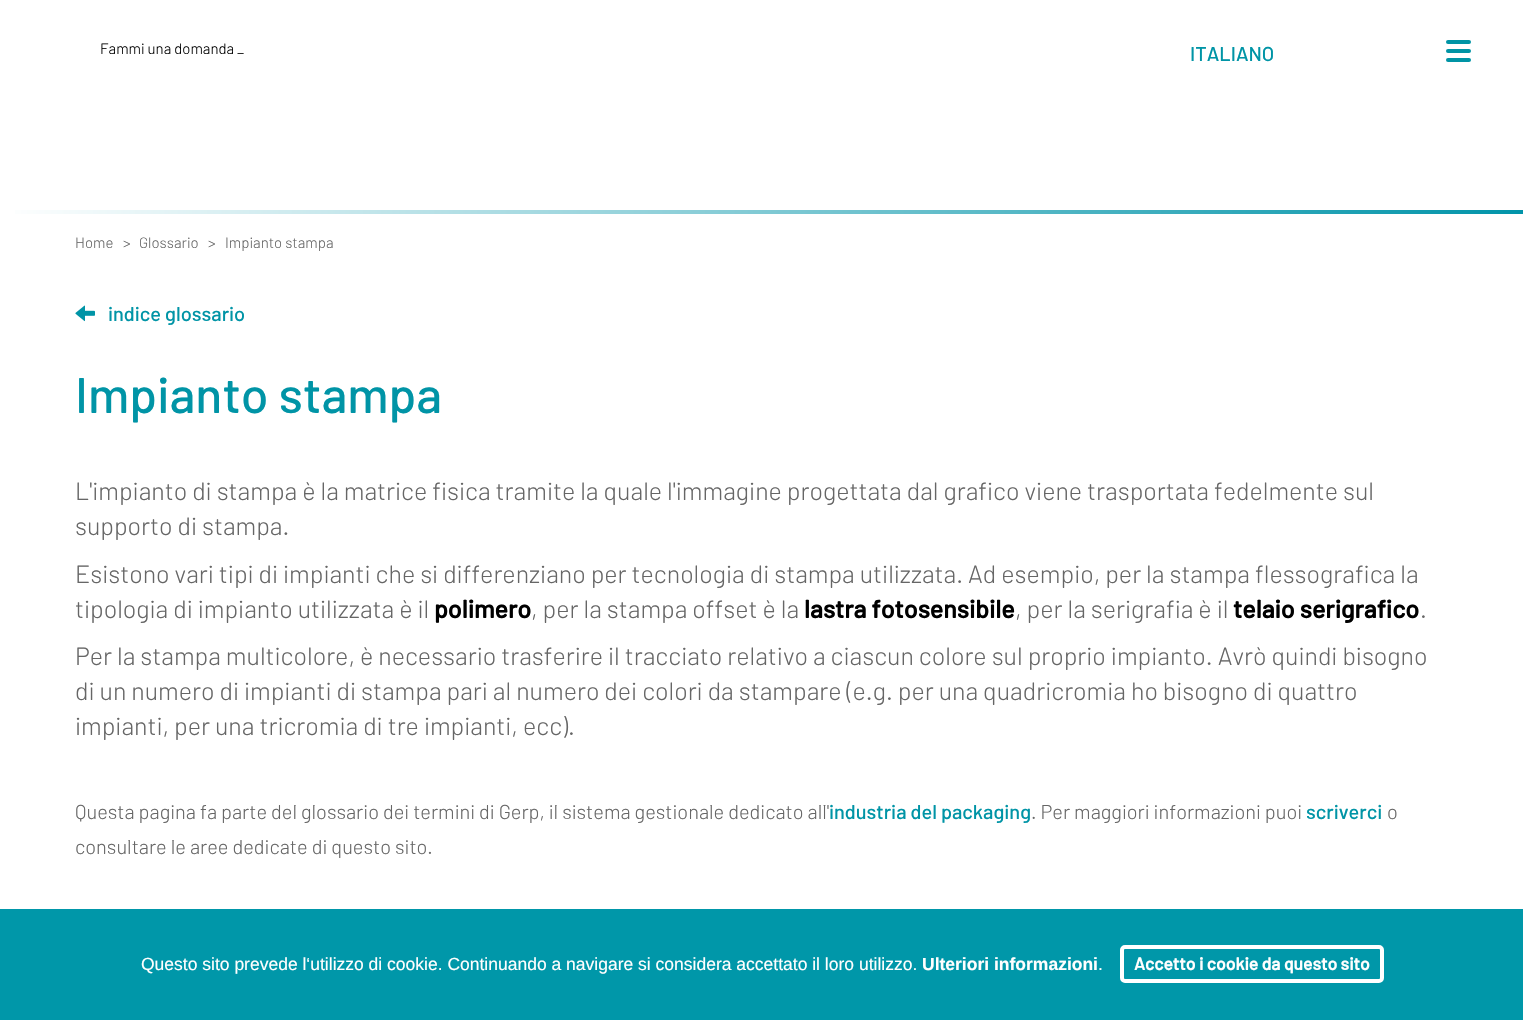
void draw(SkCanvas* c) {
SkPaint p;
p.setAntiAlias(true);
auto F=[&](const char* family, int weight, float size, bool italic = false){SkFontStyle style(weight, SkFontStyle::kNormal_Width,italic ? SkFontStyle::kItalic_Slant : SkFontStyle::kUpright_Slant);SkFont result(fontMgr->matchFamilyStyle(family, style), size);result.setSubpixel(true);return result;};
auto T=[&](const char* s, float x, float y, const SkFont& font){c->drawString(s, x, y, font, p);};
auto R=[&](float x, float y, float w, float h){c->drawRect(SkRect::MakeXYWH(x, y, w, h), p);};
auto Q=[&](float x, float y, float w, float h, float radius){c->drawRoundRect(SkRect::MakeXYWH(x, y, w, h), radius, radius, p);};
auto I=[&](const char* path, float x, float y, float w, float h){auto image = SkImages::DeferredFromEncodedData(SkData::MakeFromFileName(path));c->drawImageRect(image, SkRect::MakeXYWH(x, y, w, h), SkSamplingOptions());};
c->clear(0xffffffff);
auto f1 = F("Barlow",300,15);
p.setColor(0xff000000);
T("Fammi una domanda _",100,54,f1);
auto f2 = F("Barlow",500,20);
p.setColor(0xff0094a6);
T("ITALIANO",1190,61,f2);
p.setColor(0xff0094a5);
Q(1446,40,25,4,2);
Q(1446,49,25,4,2);
Q(1446,58,25,4,2);
{
const SkColor colors[] = {0xffffffff,0xff0194a9};
const float stops[] = {0,1};
const SkPoint ends[] = {{0,212}, {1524,212}};
p.setShader(SkGradientShader::MakeLinear(ends, colors, stops, 2, SkTileMode::kClamp));
p.setAlpha(255);
}
R(15,210,1508,4);
p.setShader(nullptr);
p.setColor(0xff666666);
T("Home",75,248,f1);
T(">",123,248,f1);
T("Glossario",139,248,f1);
T(">",208,248,f1);
T("Impianto stampa",225,248,f1);
I("1.png",75,305,20,17);
p.setColor(0xff0094a6);
T("indice glossario",108,321,f2);
auto f3 = F("Barlow",500,50);
T("Impianto stampa",75,413,f3);
auto f4 = F("Barlow",300,25);
p.setColor(0xff666666);
T("L'impianto di stampa è la matrice fisica tramite la quale l'immagine progettata dal grafico viene trasportata fedelmente sul",75,500,f4);
T("supporto di stampa.",75,535,f4);
T("Esistono vari tipi di impianti che si differenziano per tecnologia di stampa utilizzata. Ad esempio, per la stampa flessografica la",75,583,f4);
T("tipologia di impianto utilizzata è il",75,618,f4);
auto f5 = F("Barlow",700,25);
p.setColor(0xff000000);
T("polimero",434,618,f5);
p.setColor(0xff666666);
T(", per la stampa offset è la",531,618,f4);
p.setColor(0xff000000);
T("lastra fotosensibile",804,618,f5);
p.setColor(0xff666666);
T(", per la serigrafia è il",1015,618,f4);
p.setColor(0xff000000);
T("telaio serigrafico",1233,618,f5);
p.setColor(0xff666666);
T(".",1420,618,f4);
T("Per la stampa multicolore, è necessario trasferire il tracciato relativo a ciascun colore sul proprio impianto. Avrò quindi bisogno",75,665,f4);
T("di un numero di impianti di stampa pari al numero dei colori da stampare (e.g. per una quadricromia ho bisogno di quattro",75,700,f4);
T("impianti, per una tricromia di tre impianti, ecc).",75,735,f4);
auto f6 = F("Barlow",300,20);
T("Questa pagina fa parte del glossario dei termini di Gerp, il sistema gestionale dedicato all'",75,819,f6);
p.setColor(0xff0094a6);
T("industria del packaging",829,819,f2);
p.setColor(0xff666666);
T(". Per maggiori informazioni puoi",1031,819,f6);
p.setColor(0xff0094a6);
T("scriverci",1306,819,f2);
p.setColor(0xff666666);
T("o",1387,819,f6);
T("consultare le aree dedicate di questo sito.",75,854,f6);
p.setColor(0xff0097a9);
R(0,909,1523,111);
auto f7 = F("Liberation Sans",400,17.5);
p.setColor(0xffffffff);
T("Questo sito prevede l‘utilizzo di cookie. Continuando a navigare si considera accettato il loro utilizzo.",141,970,f7);
auto f8 = F("Liberation Sans",700,17.5);
T("Ulteriori informazioni",922,970,f8);
T(".",1098,970,f7);
p.setStroke(true);
p.setStrokeWidth(4);
c->drawRoundRect(SkRect::MakeXYWH(1122,947,260,34),3,3,p);
auto f9 = F("Barlow",700,17.5);
p.setStroke(false);
T("Accetto i cookie da questo sito",1134,970,f9);
}
